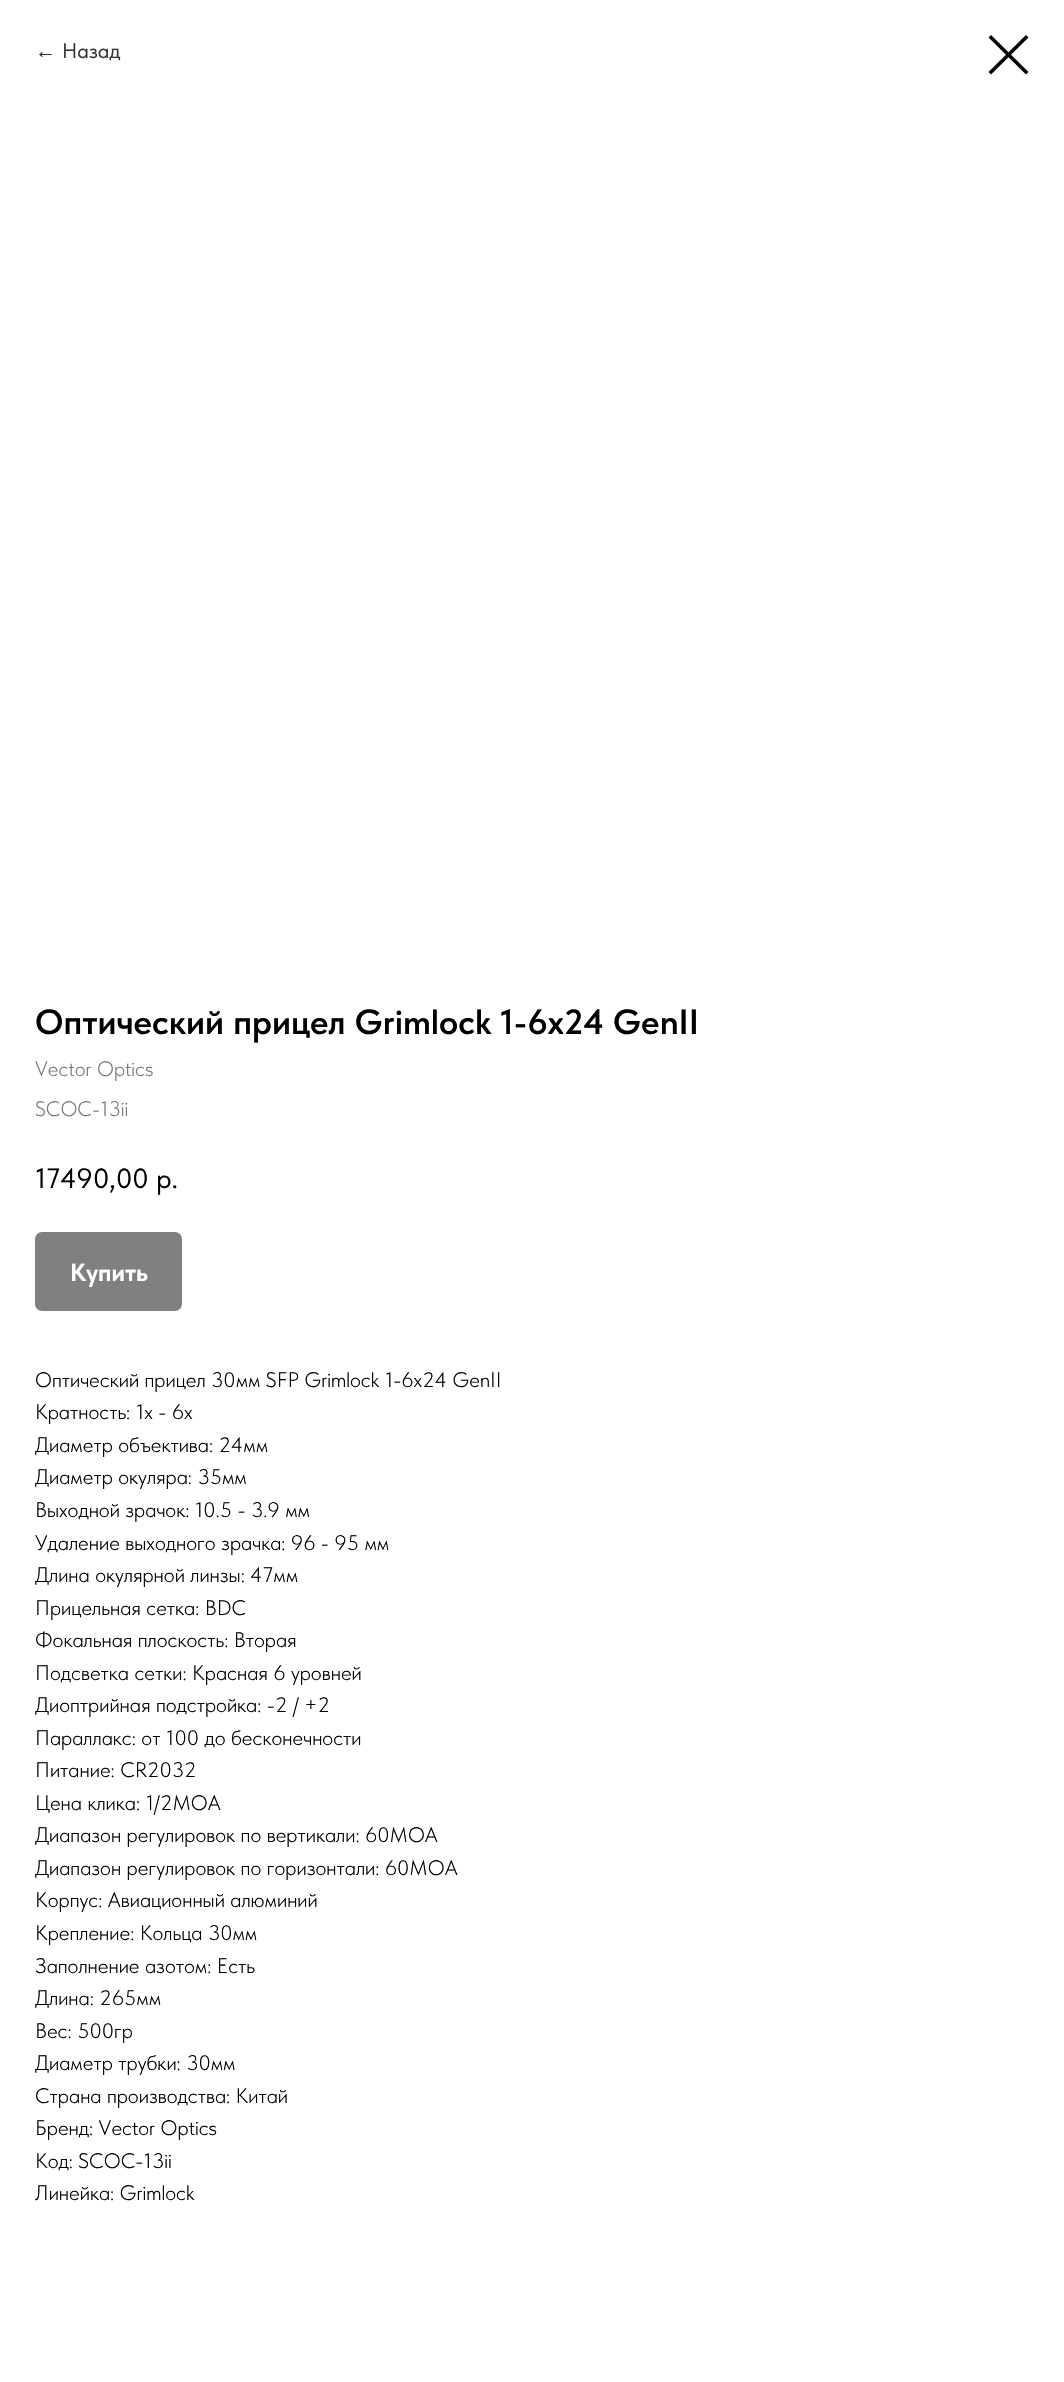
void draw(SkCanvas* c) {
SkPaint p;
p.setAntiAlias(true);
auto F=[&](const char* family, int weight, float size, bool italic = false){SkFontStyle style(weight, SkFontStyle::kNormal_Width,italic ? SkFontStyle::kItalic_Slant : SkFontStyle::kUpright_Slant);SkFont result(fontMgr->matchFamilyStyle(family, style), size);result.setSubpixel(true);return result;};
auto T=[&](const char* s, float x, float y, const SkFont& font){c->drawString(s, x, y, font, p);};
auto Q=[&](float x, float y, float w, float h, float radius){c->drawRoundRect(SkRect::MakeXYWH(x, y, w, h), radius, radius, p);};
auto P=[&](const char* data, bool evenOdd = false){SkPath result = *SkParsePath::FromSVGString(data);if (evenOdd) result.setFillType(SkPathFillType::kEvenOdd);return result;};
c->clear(0xffffffff);
auto f1 = F("Liberation Sans",400,21);
p.setColor(0xff333333);
T("←",35,58,f1);
auto f2 = F("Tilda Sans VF",400,21);
T("Назад",62,58,f2);
p.setColor(0xff000000);
c->drawPath(P("M988.5 37.5l2.5-2.5l37.5 37l-2.5 2.5z",true),p);
c->drawPath(P("M1026 35l2.5 2.5l-37.5 37l-2.5-2.5z",true),p);
auto f3 = F("Tilda Sans VF",600,35);
T("Оптический прицел Grimlock 1-6x24 GenII",35,1034,f3);
auto f4 = F("Tilda Sans VF",300,21);
p.setColor(0xff777777);
T("Vector Optics",35,1076,f4);
T("SCOC-13ii",35,1116,f4);
auto f5 = F("Tilda Sans VF",400,28);
p.setColor(0xff000000);
T("17490,00",35,1188,f5);
T("р.",156,1188,f5);
p.setColor(0xff808080);
Q(35,1232,147,79,7);
auto f6 = F("Tilda Sans VF",700,24.5);
p.setColor(0xffffffff);
T("Купить",70,1281,f6);
p.setColor(0xff000000);
T("Оптический прицел 30мм SFP Grimlock 1-6x24 GenII",35,1387,f4);
T("Кратность: 1x - 6x",35,1419,f4);
T("Диаметр объектива: 24мм",35,1452,f4);
T("Диаметр окуляра: 35мм",35,1484,f4);
T("Выходной зрачок: 10.5 - 3.9 мм",35,1517,f4);
T("Удаление выходного зрачка: 96 - 95 мм",35,1550,f4);
T("Длина окулярной линзы: 47мм",35,1582,f4);
T("Прицельная сетка: BDC",35,1615,f4);
T("Фокальная плоскость: Вторая",35,1647,f4);
T("Подсветка сетки: Красная 6 уровней",35,1680,f4);
T("Диоптрийная подстройка: -2 / +2",35,1712,f4);
T("Параллакс: от 100 до бесконечности",35,1745,f4);
T("Питание: CR2032",35,1777,f4);
T("Цена клика: 1/2MOA",35,1810,f4);
T("Диапазон регулировок по вертикали: 60MOA",35,1842,f4);
T("Диапазон регулировок по горизонтали: 60MOA",35,1875,f4);
T("Корпус: Авиационный алюминий",35,1907,f4);
T("Крепление: Кольца 30мм",35,1940,f4);
T("Заполнение азотом: Есть",35,1973,f4);
T("Длина: 265мм",35,2005,f4);
T("Вес: 500гр",35,2038,f4);
T("Диаметр трубки: 30мм",35,2070,f4);
T("Страна производства: Китай",35,2103,f4);
T("Бренд: Vector Optics",35,2135,f4);
T("Код: SCOC-13ii",35,2168,f4);
T("Линейка: Grimlock",35,2200,f4);
}
